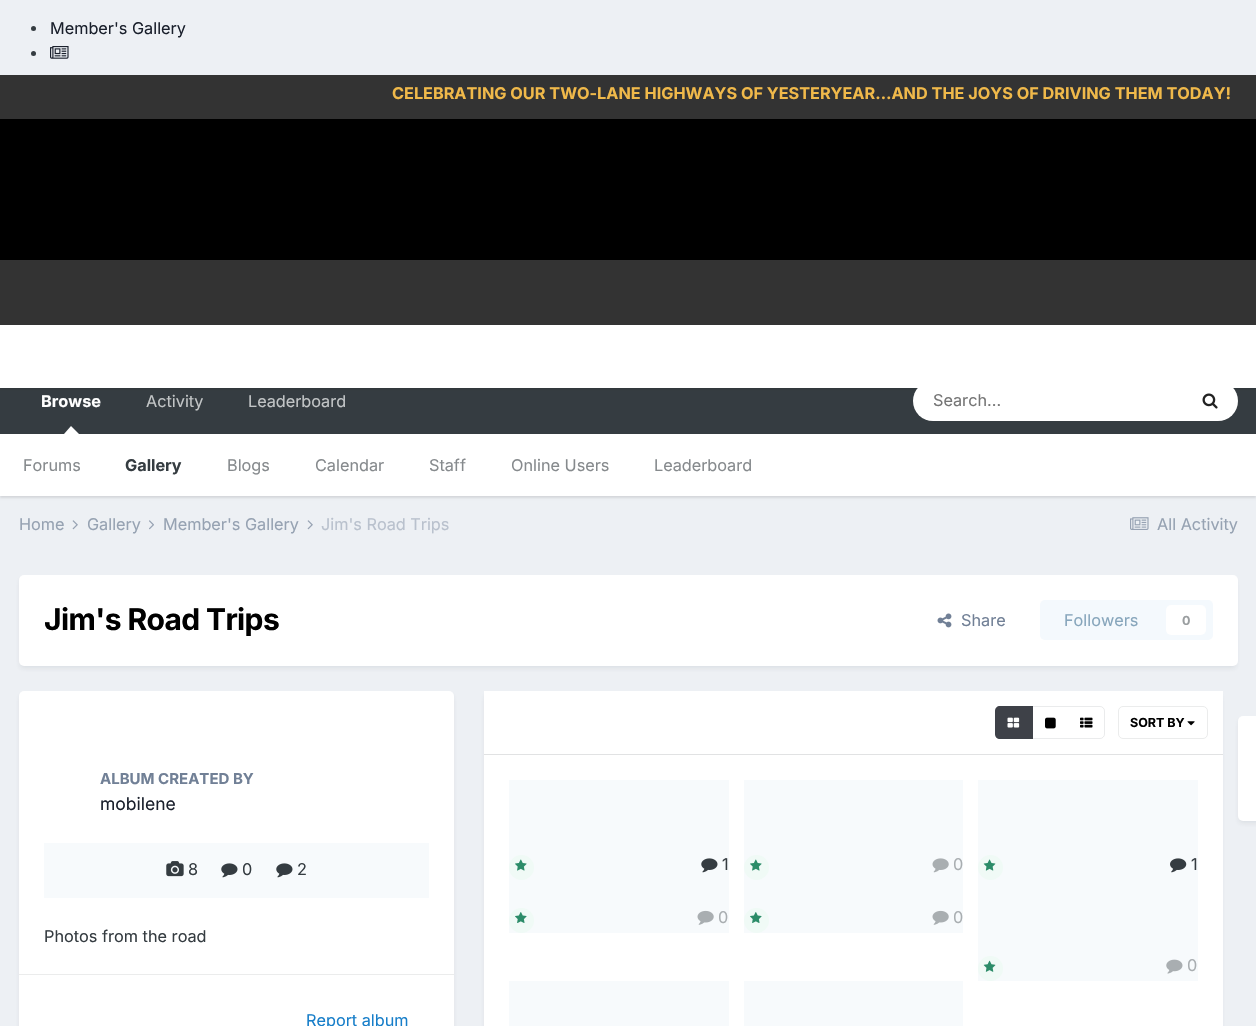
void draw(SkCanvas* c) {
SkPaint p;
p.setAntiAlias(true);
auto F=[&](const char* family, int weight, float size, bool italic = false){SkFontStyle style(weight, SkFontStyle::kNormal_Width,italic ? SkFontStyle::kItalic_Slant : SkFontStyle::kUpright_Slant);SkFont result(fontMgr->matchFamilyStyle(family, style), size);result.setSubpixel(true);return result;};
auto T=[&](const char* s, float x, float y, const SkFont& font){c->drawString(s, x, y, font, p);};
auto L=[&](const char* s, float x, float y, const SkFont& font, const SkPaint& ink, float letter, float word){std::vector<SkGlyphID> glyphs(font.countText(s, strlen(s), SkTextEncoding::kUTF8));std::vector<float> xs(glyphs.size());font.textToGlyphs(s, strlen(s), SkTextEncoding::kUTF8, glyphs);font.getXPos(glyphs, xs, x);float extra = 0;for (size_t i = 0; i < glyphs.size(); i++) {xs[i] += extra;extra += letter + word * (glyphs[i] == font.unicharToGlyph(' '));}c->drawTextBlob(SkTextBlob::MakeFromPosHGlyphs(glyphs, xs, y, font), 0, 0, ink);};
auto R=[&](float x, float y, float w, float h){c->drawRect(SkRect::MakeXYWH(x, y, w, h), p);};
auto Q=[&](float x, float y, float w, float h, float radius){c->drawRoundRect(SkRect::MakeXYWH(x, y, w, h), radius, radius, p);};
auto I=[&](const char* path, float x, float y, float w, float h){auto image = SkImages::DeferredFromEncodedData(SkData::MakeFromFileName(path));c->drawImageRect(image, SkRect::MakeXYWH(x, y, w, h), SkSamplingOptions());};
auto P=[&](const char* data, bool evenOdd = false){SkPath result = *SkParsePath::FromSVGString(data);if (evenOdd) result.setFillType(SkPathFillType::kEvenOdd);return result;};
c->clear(0xffedf0f4);
p.setColor(0xff353c41);
c->drawCircle(33.5,28.5,2.5,p);
auto f1 = F("Inter",400,16.25);
p.setColor(0xff1a202c);
T("Member's Gallery",50,34,f1);
p.setColor(0xff353c41);
c->drawCircle(33.5,53.5,2.5,p);
I("1.png",50,46,19,13);
p.setColor(0xff333333);
R(0,75,1256,250);
auto f2 = F("Inter",700,16.25);
p.setColor(0xfff0b94a);
T("CELEBRATING OUR TWO-LANE HIGHWAYS OF YESTERYEAR…AND THE JOYS OF DRIVING THEM TODAY!",392,99,f2);
p.setColor(0xff000000);
R(0,119,1256,141);
c->save();
c->clipRect(SkRect::MakeXYWH(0,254,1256,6));
p.setColor(0x80000000);
p.setMaskFilter(SkMaskFilter::MakeBlur(kNormal_SkBlurStyle, 2.5));
c->drawRect(SkRect::MakeXYWH(0,258,1256,65),p);
p.setMaskFilter(nullptr);
c->restore();
p.setColor(0xff353c41);
R(0,388,1256,46);
p.setColor(0x1a000000);
p.setMaskFilter(SkMaskFilter::MakeBlur(kNormal_SkBlurStyle, 1));
c->drawRect(SkRect::MakeXYWH(0,326,1256,63),p);
p.setMaskFilter(nullptr);
p.setColor(0xffffffff);
R(0,325,1256,63);
p.setColor(0xffc2c5c6);
T("Activity",146,407,f1);
p.setColor(0xffffffff);
T("Browse",41,407,f2);
p.setColor(0x1a000000);
p.setMaskFilter(SkMaskFilter::MakeBlur(kNormal_SkBlurStyle, 1));
c->drawRect(SkRect::MakeXYWH(0,435,1256,63),p);
p.setMaskFilter(nullptr);
p.setColor(0xffffffff);
c->drawPath(P("M79 434h-15l7-8z"),p);
R(0,434,1256,62);
p.setColor(0xff868a8d);
T("Forums",23,471,f1);
p.setColor(0xff353c41);
T("Gallery",125,471,f2);
p.setColor(0xff868a8d);
T("Blogs",227,471,f1);
T("Calendar",315,471,f1);
T("Staff",429,471,f1);
T("Online Users",511,471,f1);
T("Leaderboard",654,471,f1);
p.setColor(0xffc2c5c6);
T("Leaderboard",248,407,f1);
p.setColor(0xffffffff);
Q(913,381,325,40,20);
p.setColor(0xff757575);
T("Search...",933,406,f1);
I("2.png",1202,393,16,16);
p.setColor(0xff96a2b2);
T("Home",19,530,f1);
I("3.png",72,520,6,10);
T("Gallery",87,530,f1);
I("4.png",149,520,5,10);
T("Member's Gallery",163,530,f1);
I("3.png",307,520,6,10);
p.setColor(0xffb9c1cd);
T("Jim's Road Trips",321,530,f1);
I("5.png",1130,517,19,13);
p.setColor(0xff96a2b2);
T("All Activity",1157,530,f1);
p.setColor(0x1a2d3748);
p.setMaskFilter(SkMaskFilter::MakeBlur(kNormal_SkBlurStyle, 2.5));
c->drawRoundRect(SkRect::MakeXYWH(20,579,1216,89),4,4,p);
p.setMaskFilter(nullptr);
p.setColor(0xffffffff);
Q(19,575,1219,91,5);
auto f3 = F("Inter",700,30);
p.setColor(0xff000000);
L("Jim's Road Trips",44,630,f3,p,-.6,0);
I("6.png",937,613,15,15);
p.setColor(0xff718096);
T("Share",961,626,f1);
p.setColor(0xfff4f9fd);
Q(1040,600,173,40,5);
p.setColor(0xff87a6bc);
T("Followers",1064,626,f1);
p.setColor(0xffffffff);
Q(1166,605,40,30,5);
auto f4 = F("Inter",700,12.5);
p.setColor(0xff9a9ea0);
T("0",1182,625,f4);
p.setColor(0x1a2d3748);
p.setMaskFilter(SkMaskFilter::MakeBlur(kNormal_SkBlurStyle, 2.5));
c->drawRoundRect(SkRect::MakeXYWH(20,695,433,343),4,4,p);
p.setMaskFilter(nullptr);
p.setColor(0xffffffff);
Q(19,691,435,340,5);
auto f5 = F("Inter",700,15);
p.setColor(0xff718096);
T("ALBUM CREATED BY",100,784,f5);
auto f6 = F("Inter",400,17.5);
p.setColor(0xff1a202c);
T("mobilene",100,810,f6);
p.setColor(0xfff7fafc);
R(44,843,385,55);
I("7.png",166,861,18,16);
p.setColor(0xff353c41);
T("8",188,875,f1);
I("8.png",221,863,17,15);
T("0",242,875,f1);
I("8.png",276,863,17,15);
T("2",297,875,f1);
T("Photos from the road",44,942,f1);
p.setColor(0xffebecec);
R(19,974,435,1);
p.setColor(0xff177ec9);
T("Report album",306,1026,f1);
p.setColor(0x1a2d3748);
p.setMaskFilter(SkMaskFilter::MakeBlur(kNormal_SkBlurStyle, 2.5));
c->drawRoundRect(SkRect::MakeXYWH(485,695,736,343),4,4,p);
p.setMaskFilter(nullptr);
p.setColor(0xffffffff);
R(484,755,739,271);
R(484,691,739,63);
p.setColor(0xffe1e2e3);
R(484,754,739,1);
p.setColor(0xff3e4148);
c->drawPath(P("M1000 706h33v33h-33c-3 0-5-2-5-5v-23c0-3 2-5 5-5z"),p);
I("9.png",1007,717,13,11);
I("10.png",1045,717,11,12);
I("11.png",1080,717,13,11);
p.setStroke(true);
p.setStrokeWidth(1);
p.setColor(0x1a353c41);
c->drawRoundRect(SkRect::MakeXYWH(995.5,706.5,109,32),4.5,4.5,p);
I("12.png",1187,721,8,5);
p.setColor(0xffebecec);
c->drawRoundRect(SkRect::MakeXYWH(1118.5,706.5,89,32),4.5,4.5,p);
p.setStroke(false);
p.setColor(0xff000000);
T("SORT BY",1130,727,f4);
p.setColor(0xfff7fafc);
R(509,780,220,153);
p.setColor(0xfff0faf6);
c->drawCircle(521.5,867.5,12.5,p);
I("13.png",515,859,12,12);
I("8.png",701,858,17,15);
p.setColor(0xff353c41);
T("1",722,870,f1);
p.setColor(0xfff7fafc);
R(744,780,219,153);
p.setColor(0xfff0faf6);
c->drawCircle(756.5,867.5,12.5,p);
I("13.png",750,859,12,12);
I("14.png",932,858,17,15);
p.setColor(0xffa9aeb1);
T("0",953,870,f1);
p.setColor(0xfff7fafc);
R(978,780,220,201);
p.setColor(0xfff0faf6);
c->drawCircle(990.5,867.5,12.5,p);
I("15.png",983,859,13,12);
I("16.png",1170,858,17,15);
p.setColor(0xff353c41);
T("1",1191,870,f1);
p.setColor(0xfff0faf6);
c->drawCircle(521.5,920.5,12.5,p);
I("17.png",515,912,12,11);
I("18.png",697,910,17,15);
p.setColor(0xffa9aeb1);
T("0",718,923,f1);
p.setColor(0xfff0faf6);
c->drawCircle(756.5,920.5,12.5,p);
I("17.png",750,912,12,11);
I("18.png",932,910,17,15);
p.setColor(0xffa9aeb1);
T("0",953,923,f1);
p.setColor(0xfff0faf6);
c->drawCircle(990.5,968.5,12.5,p);
I("19.png",983,960,13,12);
I("20.png",1166,959,17,15);
p.setColor(0xffa9aeb1);
T("0",1187,971,f1);
p.setColor(0xfff7fafc);
R(509,981,220,45);
R(744,981,219,45);
p.setColor(0x1a2d3748);
p.setMaskFilter(SkMaskFilter::MakeBlur(kNormal_SkBlurStyle, 2.5));
c->drawRoundRect(SkRect::MakeXYWH(1239,720,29,103),4,4,p);
p.setMaskFilter(nullptr);
p.setColor(0xffffffff);
Q(1238,716,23,105,5);
}
